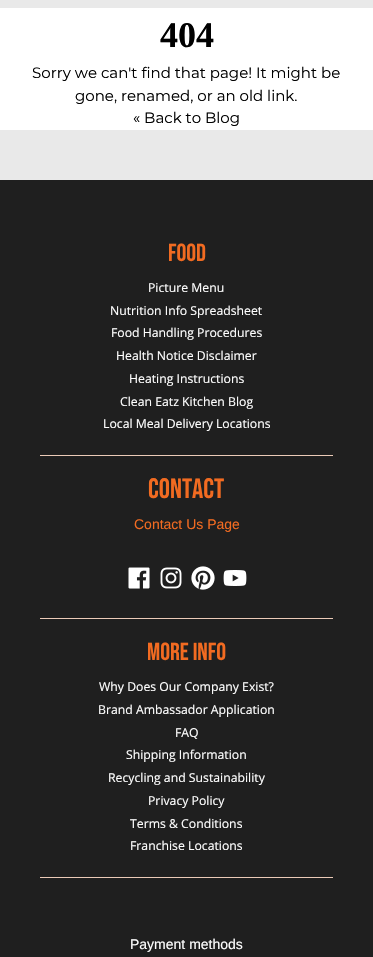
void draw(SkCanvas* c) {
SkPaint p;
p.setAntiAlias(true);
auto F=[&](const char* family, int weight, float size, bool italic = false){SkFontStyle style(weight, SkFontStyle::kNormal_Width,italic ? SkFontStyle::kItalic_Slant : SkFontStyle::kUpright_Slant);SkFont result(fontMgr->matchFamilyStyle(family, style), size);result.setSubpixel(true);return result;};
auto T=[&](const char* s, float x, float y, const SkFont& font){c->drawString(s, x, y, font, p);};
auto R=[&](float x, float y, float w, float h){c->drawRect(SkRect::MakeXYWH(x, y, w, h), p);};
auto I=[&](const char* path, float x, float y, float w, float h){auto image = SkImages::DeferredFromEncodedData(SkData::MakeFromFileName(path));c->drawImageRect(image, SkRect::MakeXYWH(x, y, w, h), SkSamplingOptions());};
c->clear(0xffe9e9e9);
p.setColor(0xffffffff);
R(0,8,373,122);
auto f1 = F("Liberation Serif",700,36);
p.setColor(0xff000000);
T("404",160,47,f1);
auto f2 = F("Montserrat",100,15);
T("Sorry we can't find that page! It might be",32,78,f2);
T("gone, renamed, or an old link.",75,101,f2);
T("« Back to Blog",133,123,f2);
p.setColor(0xff1f1f1f);
R(0,180,373,777);
auto f3 = F("Bebas Neue",400,24.5);
p.setColor(0xfff26b21);
T("FOOD",168,261,f3);
auto f4 = F("Open Sans",400,12.25);
p.setColor(0xffffffff);
T("Picture Menu",148,292,f4);
T("Nutrition Info Spreadsheet",110,315,f4);
T("Food Handling Procedures",111,337,f4);
T("Health Notice Disclaimer",116,360,f4);
T("Heating Instructions",129,383,f4);
T("Clean Eatz Kitchen Blog",120,406,f4);
T("Local Meal Delivery Locations",103,428,f4);
p.setColor(0xffebcab7);
R(40,455,293,1);
auto f5 = F("Bebas Neue",400,28);
p.setColor(0xfff26b21);
T("CONTACT",148,498,f5);
auto f6 = F("Liberation Sans",400,14);
T("Contact Us Page",134,529,f6);
I("1.png",128,567,22,22);
I("2.png",160,567,22,22);
I("3.png",191,566,24,24);
I("4.png",223,570,24,16);
p.setColor(0xffebcab7);
R(40,618,293,1);
p.setColor(0xfff26b21);
T("MORE INFO",147,660,f3);
p.setColor(0xffffffff);
T("Why Does Our Company Exist?",99,691,f4);
T("Brand Ambassador Application",98,714,f4);
T("FAQ",175,737,f4);
T("Shipping Information",126,759,f4);
T("Recycling and Sustainability",108,782,f4);
T("Privacy Policy",148,805,f4);
T("Terms & Conditions",130,828,f4);
T("Franchise Locations",130,850,f4);
p.setColor(0xffebcab7);
R(40,877,293,1);
p.setColor(0xffffffff);
T("Payment methods",130,949,f6);
}
